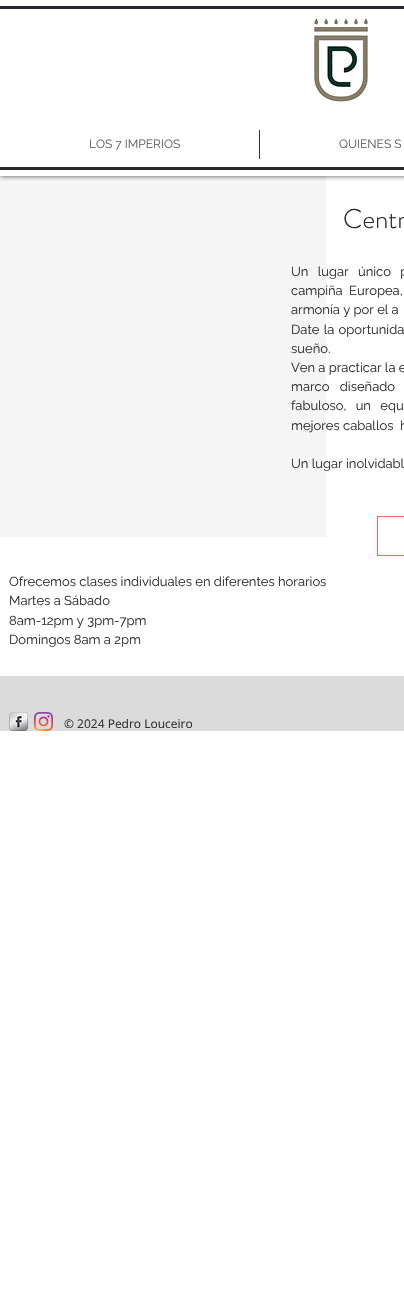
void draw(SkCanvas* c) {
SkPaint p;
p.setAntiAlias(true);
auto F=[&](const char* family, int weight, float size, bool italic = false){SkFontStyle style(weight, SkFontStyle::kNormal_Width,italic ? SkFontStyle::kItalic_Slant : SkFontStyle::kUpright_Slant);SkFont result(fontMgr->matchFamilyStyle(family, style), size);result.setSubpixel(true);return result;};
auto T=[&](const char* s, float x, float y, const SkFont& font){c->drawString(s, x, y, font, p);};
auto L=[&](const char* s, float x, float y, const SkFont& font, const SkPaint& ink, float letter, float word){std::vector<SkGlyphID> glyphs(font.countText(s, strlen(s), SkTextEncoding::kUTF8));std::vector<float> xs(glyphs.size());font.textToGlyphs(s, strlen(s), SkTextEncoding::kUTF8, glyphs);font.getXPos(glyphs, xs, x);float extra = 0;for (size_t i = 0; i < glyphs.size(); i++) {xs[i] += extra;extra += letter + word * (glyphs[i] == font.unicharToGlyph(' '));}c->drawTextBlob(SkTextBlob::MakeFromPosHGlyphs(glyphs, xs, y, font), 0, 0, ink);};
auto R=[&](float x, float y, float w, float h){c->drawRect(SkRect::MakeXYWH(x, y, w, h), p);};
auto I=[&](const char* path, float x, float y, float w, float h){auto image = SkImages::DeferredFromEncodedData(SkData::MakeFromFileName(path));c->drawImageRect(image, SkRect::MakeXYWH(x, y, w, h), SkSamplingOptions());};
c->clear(0xffffffff);
p.setColor(0xfff5f5f5);
R(0,176,326,361);
c->save();
c->clipRect(SkRect::MakeXYWH(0,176,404,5));
p.setColor(0xb3000000);
p.setMaskFilter(SkMaskFilter::MakeBlur(kNormal_SkBlurStyle, 2.5));
c->drawRect(SkRect::MakeXYWH(0,0,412,176),p);
p.setMaskFilter(nullptr);
c->restore();
p.setColor(0xff272b31);
R(0,6,404,3);
R(0,167,404,3);
I("1.png",314,18,54,84);
auto f1 = F("Raleway",400,12);
p.setColor(0xff606060);
T("LOS 7 IMPERIOS",89,148,f1);
p.setColor(0xff303030);
R(259,130,1,29);
p.setColor(0xff606060);
T("QUIENES S",339,148,f1);
auto f2 = F("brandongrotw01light",300,27);
p.setColor(0xff292929);
T("Centr",343,228,f2);
auto f3 = F("Raleway",400,13);
p.setColor(0xff303030);
L("Un lugar único p",291,276,f3,p,0,6);
L("campiña Europea,",291,295,f3,p,0,3);
T("armonía y por el a",291,314,f3);
L("Date la oportunida",291,334,f3,p,0,1);
T("sueño.",291,353,f3);
T("Ven a practicar la e",291,372,f3);
L("marco diseñado",291,391,f3,p,0,7);
L("fabuloso, un equ",291,410,f3,p,0,6);
T("mejores caballos  h",291,430,f3);
T("Un lugar inolvidabl",291,468,f3);
p.setStroke(true);
p.setStrokeWidth(1);
p.setColor(0xffff6161);
c->drawRect(SkRect::MakeXYWH(377.5,516.5,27,39),p);
p.setStroke(false);
p.setColor(0xff303030);
T("Ofrecemos clases individuales en diferentes horarios",9,586,f3);
T("Martes a Sábado",9,605,f3);
T("8am-12pm y 3pm-7pm",9,625,f3);
T("Domingos 8am a 2pm",9,644,f3);
p.setColor(0xffdbdbdb);
R(0,676,404,55);
I("2.png",9,712,19,19);
I("3.png",34,712,19,19);
auto f4 = F("Open Sans",400,12);
p.setColor(0xff303030);
T("© 2024 Pedro Louceiro",64,728,f4);
}
